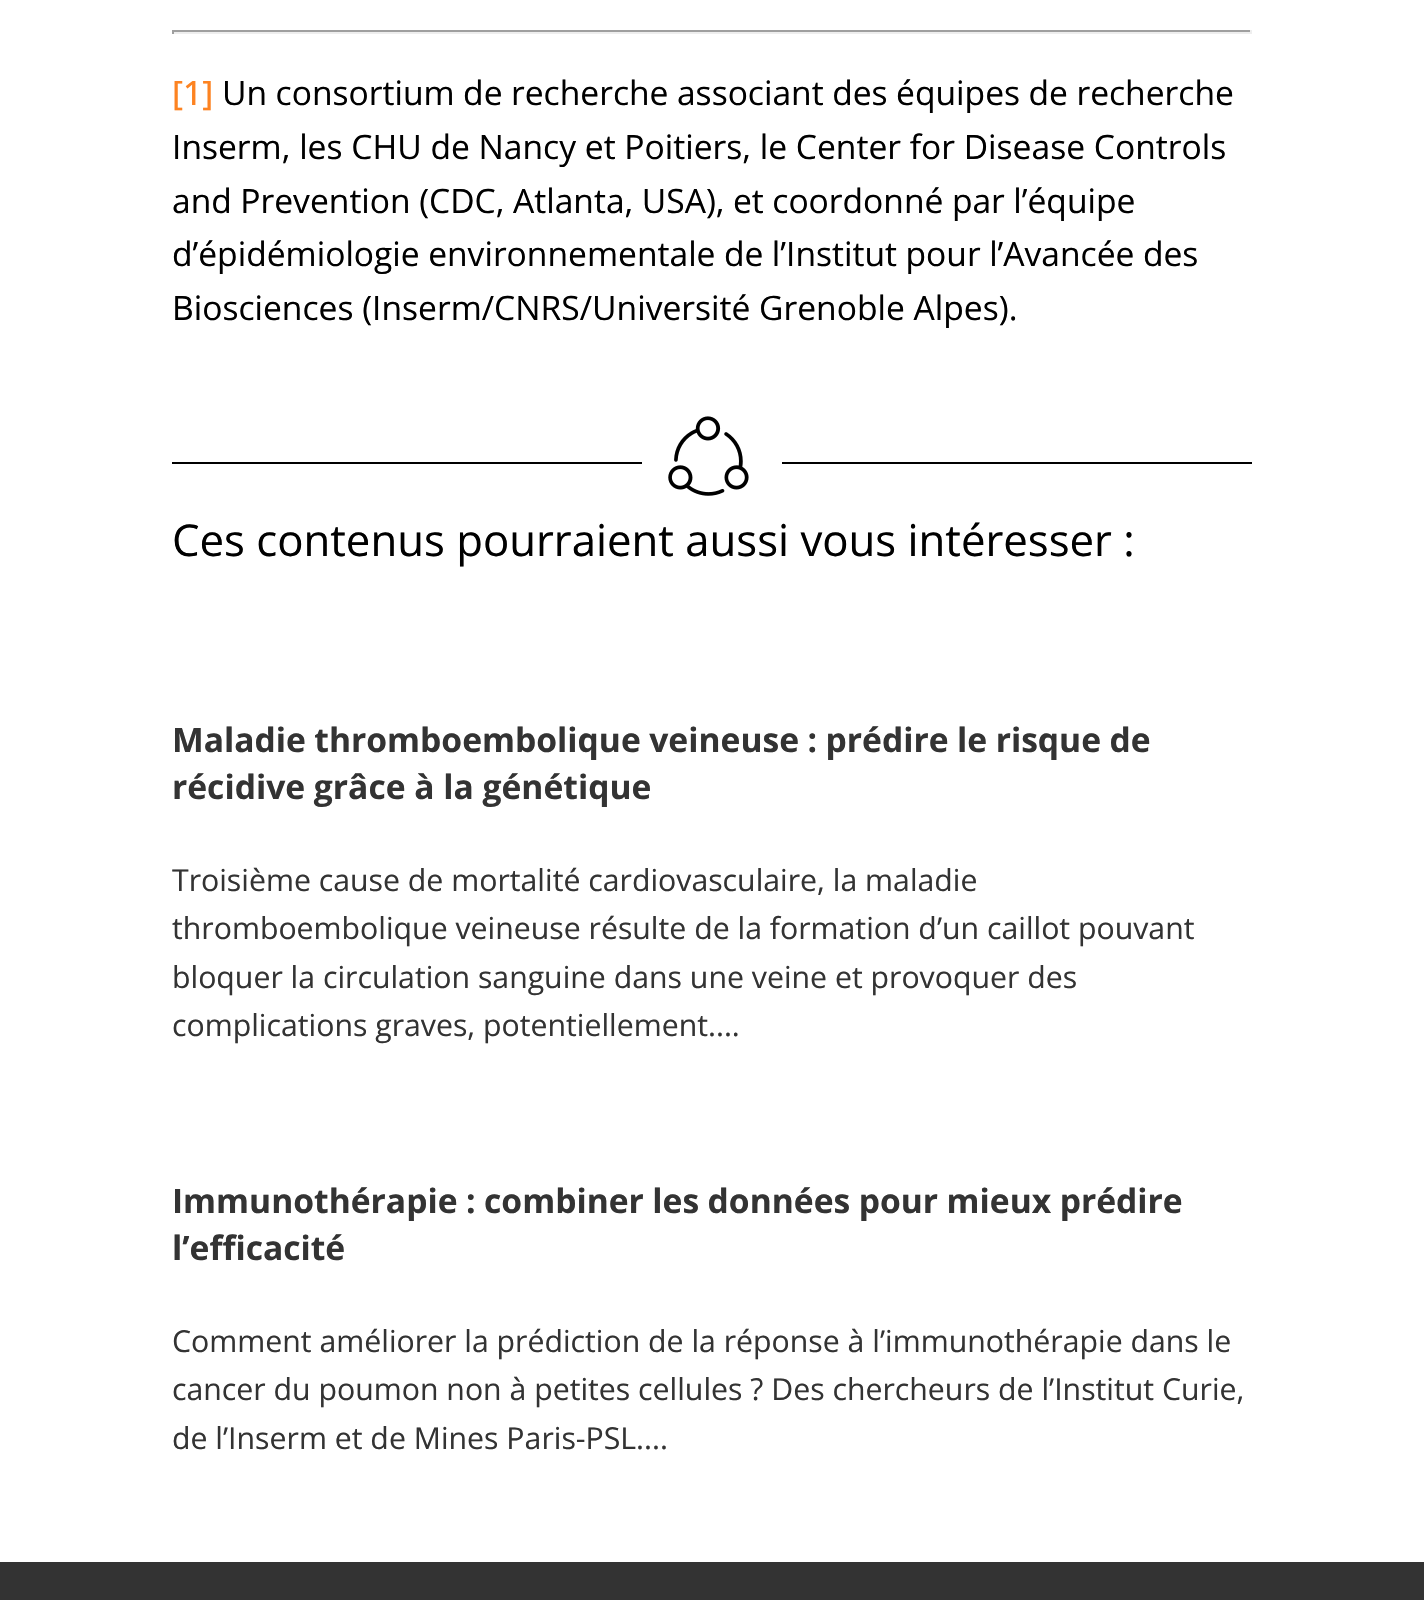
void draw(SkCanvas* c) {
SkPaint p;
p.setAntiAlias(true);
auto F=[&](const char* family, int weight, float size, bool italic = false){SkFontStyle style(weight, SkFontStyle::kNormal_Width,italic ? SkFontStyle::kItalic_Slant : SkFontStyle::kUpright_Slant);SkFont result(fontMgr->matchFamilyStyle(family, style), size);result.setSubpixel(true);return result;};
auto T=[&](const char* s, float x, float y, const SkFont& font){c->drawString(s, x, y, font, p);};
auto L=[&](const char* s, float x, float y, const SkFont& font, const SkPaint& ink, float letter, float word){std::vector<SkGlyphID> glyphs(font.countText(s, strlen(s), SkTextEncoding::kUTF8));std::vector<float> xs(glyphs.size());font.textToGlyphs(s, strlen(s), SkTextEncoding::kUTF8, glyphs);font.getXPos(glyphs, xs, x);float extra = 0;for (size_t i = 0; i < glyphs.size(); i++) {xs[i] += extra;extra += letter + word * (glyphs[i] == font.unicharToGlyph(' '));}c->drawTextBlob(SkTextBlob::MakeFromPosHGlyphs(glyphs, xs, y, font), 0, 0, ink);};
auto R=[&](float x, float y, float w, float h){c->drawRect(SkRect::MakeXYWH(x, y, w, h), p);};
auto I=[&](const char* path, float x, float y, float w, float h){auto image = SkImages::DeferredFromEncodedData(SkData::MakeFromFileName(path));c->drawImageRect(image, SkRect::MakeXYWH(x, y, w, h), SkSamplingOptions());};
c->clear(0xffffffff);
p.setColor(0xff9f9f9f);
R(172,30,1080,2);
p.setColor(0xffeeeeee);
R(1250,30,2,4);
R(172,32,1080,2);
p.setColor(0xff9f9f9f);
R(172,30,2,4);
auto f1 = F("Open Sans",500,33.6);
p.setColor(0xfffd8321);
T("[1]",172,105,f1);
auto f2 = F("Open Sans",400,33.6);
p.setColor(0xff000000);
L("Un consortium de recherche associant des équipes de recherche",222,105,f2,p,0,-.25);
T("Inserm, les CHU de Nancy et Poitiers, le Center for Disease Controls",172,159,f2);
L("and Prevention (CDC, Atlanta, USA), et coordonné par l’équipe",172,213,f2,p,0,-.25);
L("d’épidémiologie environnementale de l’Institut pour l’Avancée des",172,266,f2,p,0,-.25);
T("Biosciences (Inserm/CNRS/Université Grenoble Alpes).",172,320,f2);
R(172,462,1080,2);
p.setColor(0xffffffff);
R(642,462,140,2);
I("1.png",668,416,81,80);
auto f3 = F("Open Sans",400,43.7);
p.setColor(0xff000000);
T("Ces contenus pourraient aussi vous intéresser :",172,556,f3);
auto f4 = F("Open Sans",700,33.6);
p.setColor(0xff333333);
L("Maladie thromboembolique veineuse : prédire le risque de",172,752,f4,p,0,-.25);
T("récidive grâce à la génétique",172,799,f4);
auto f5 = F("Open Sans",400,30.25);
T("Troisième cause de mortalité cardiovasculaire, la maladie",172,891,f5);
T("thromboembolique veineuse résulte de la formation d’un caillot pouvant",172,939,f5);
T("bloquer la circulation sanguine dans une veine et provoquer des",172,988,f5);
T("complications graves, potentiellement....",172,1036,f5);
L("Immunothérapie : combiner les données pour mieux prédire",172,1213,f4,p,0,-.25);
T("l’efficacité",172,1260,f4);
T("Comment améliorer la prédiction de la réponse à l’immunothérapie dans le",172,1352,f5);
T("cancer du poumon non à petites cellules ? Des chercheurs de l’Institut Curie,",172,1400,f5);
T("de l’Inserm et de Mines Paris-PSL....",172,1449,f5);
R(0,1562,1424,38);
}
